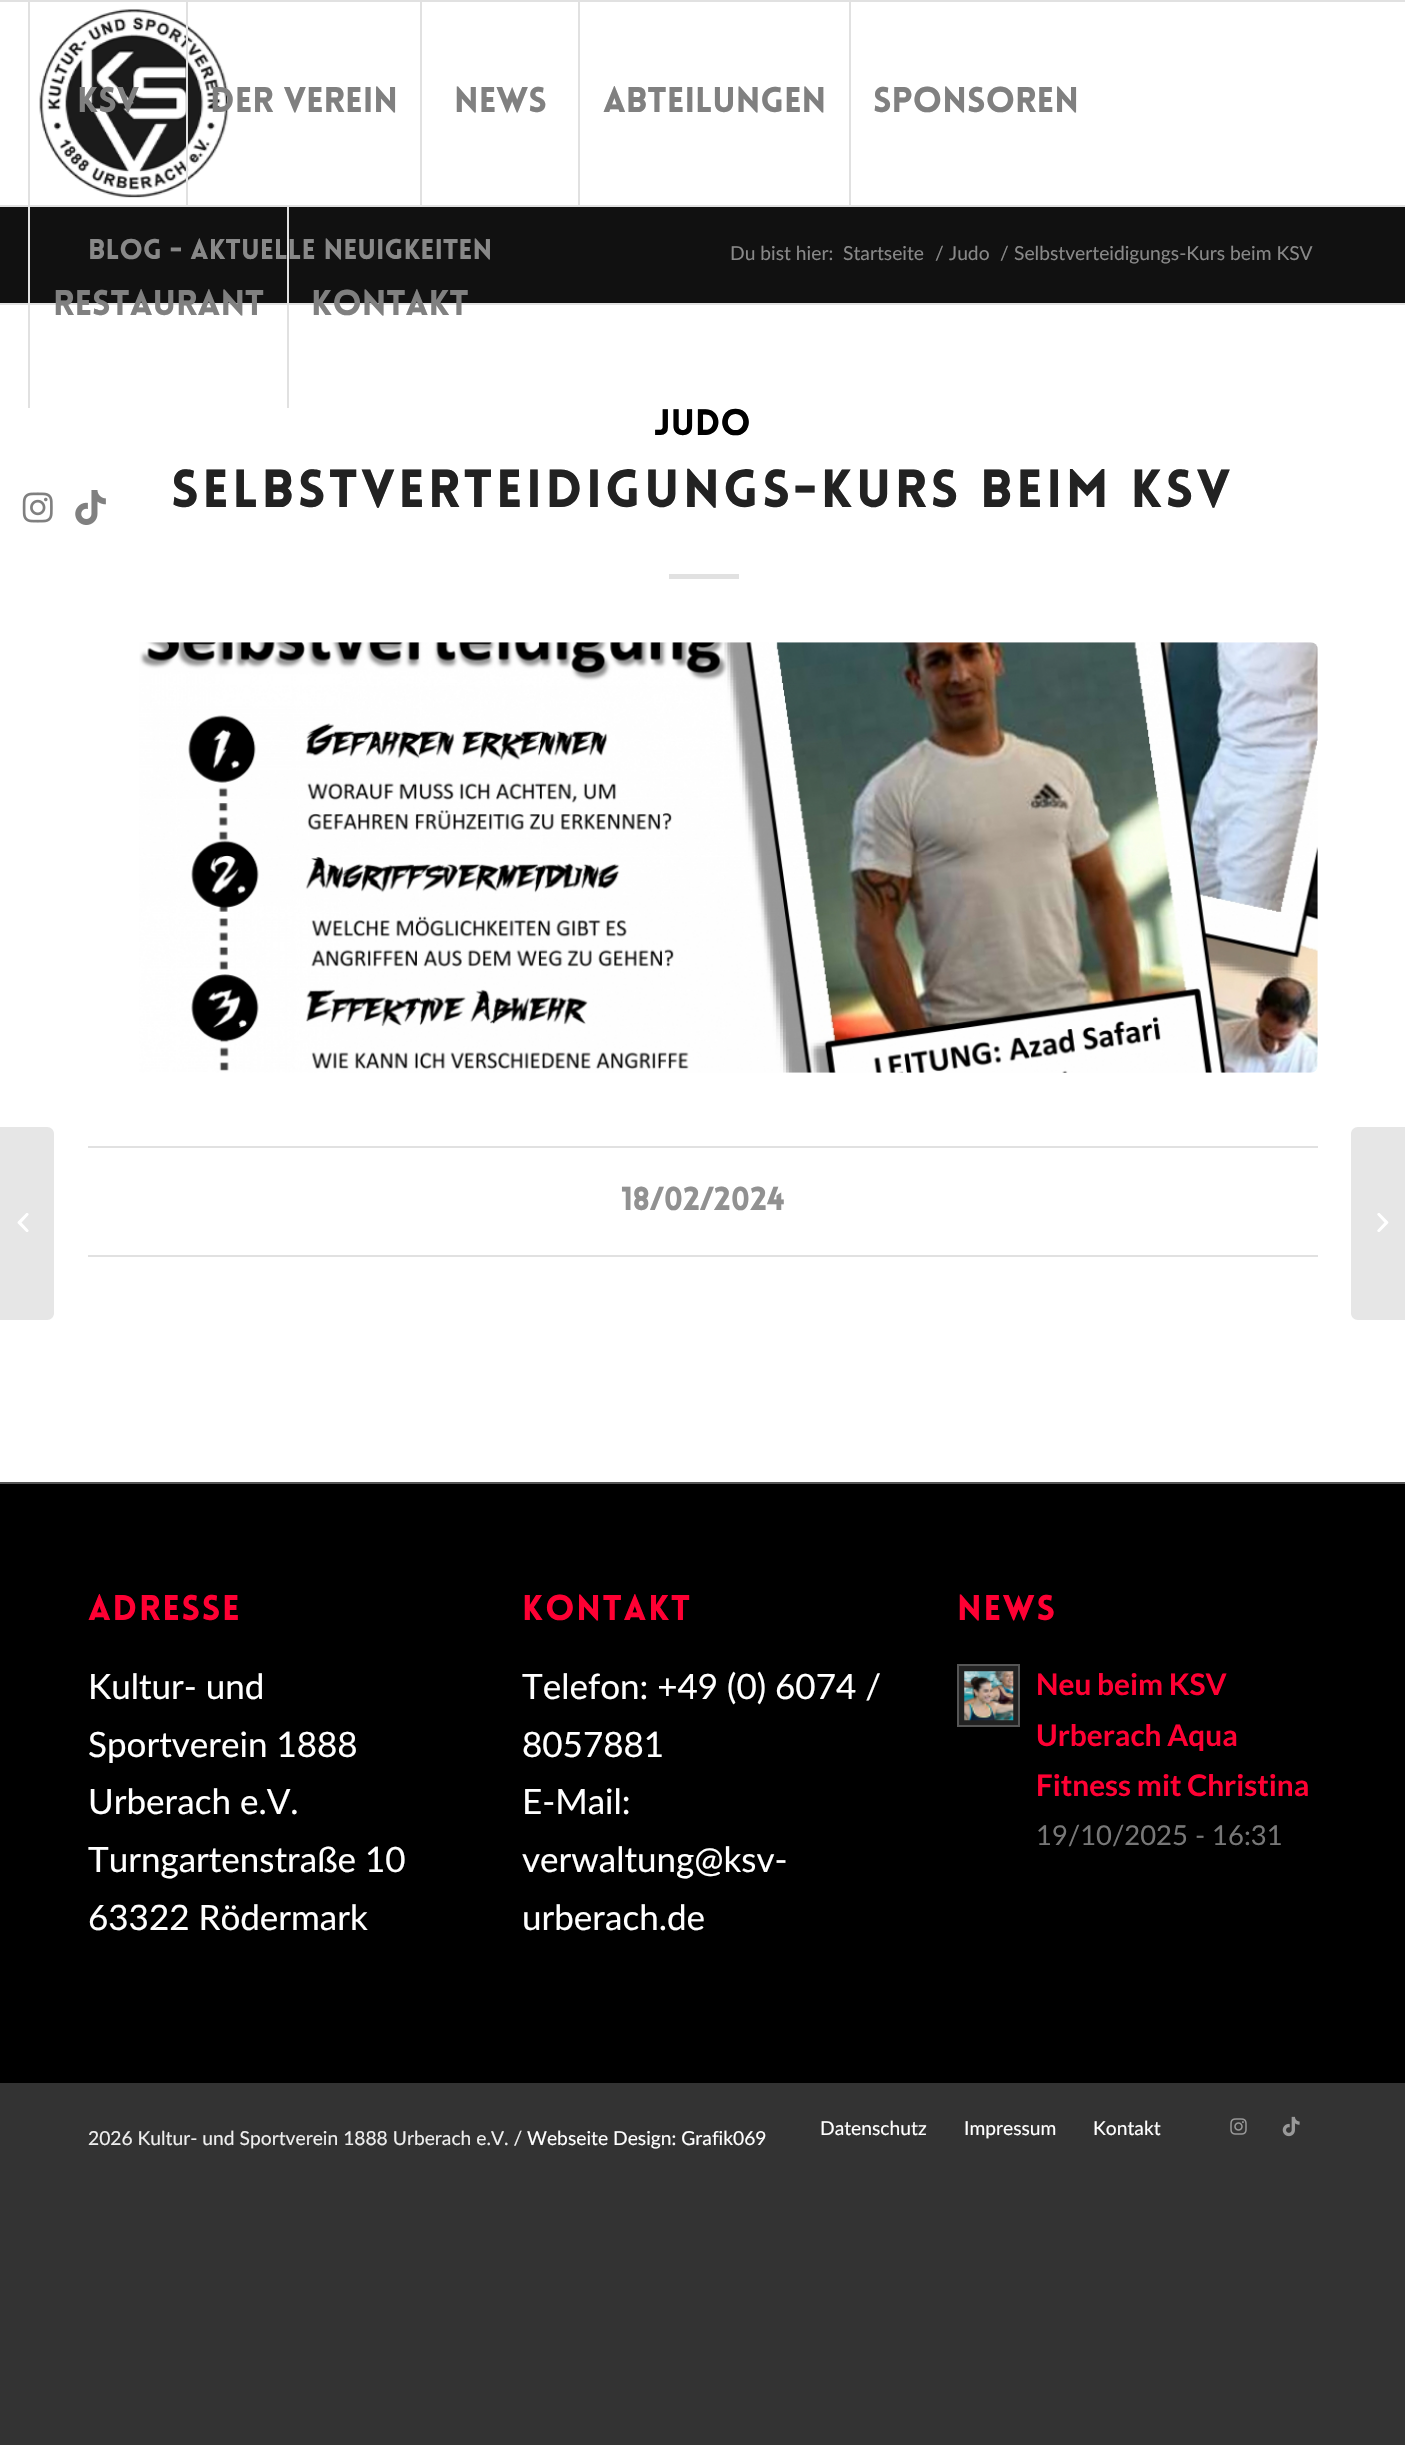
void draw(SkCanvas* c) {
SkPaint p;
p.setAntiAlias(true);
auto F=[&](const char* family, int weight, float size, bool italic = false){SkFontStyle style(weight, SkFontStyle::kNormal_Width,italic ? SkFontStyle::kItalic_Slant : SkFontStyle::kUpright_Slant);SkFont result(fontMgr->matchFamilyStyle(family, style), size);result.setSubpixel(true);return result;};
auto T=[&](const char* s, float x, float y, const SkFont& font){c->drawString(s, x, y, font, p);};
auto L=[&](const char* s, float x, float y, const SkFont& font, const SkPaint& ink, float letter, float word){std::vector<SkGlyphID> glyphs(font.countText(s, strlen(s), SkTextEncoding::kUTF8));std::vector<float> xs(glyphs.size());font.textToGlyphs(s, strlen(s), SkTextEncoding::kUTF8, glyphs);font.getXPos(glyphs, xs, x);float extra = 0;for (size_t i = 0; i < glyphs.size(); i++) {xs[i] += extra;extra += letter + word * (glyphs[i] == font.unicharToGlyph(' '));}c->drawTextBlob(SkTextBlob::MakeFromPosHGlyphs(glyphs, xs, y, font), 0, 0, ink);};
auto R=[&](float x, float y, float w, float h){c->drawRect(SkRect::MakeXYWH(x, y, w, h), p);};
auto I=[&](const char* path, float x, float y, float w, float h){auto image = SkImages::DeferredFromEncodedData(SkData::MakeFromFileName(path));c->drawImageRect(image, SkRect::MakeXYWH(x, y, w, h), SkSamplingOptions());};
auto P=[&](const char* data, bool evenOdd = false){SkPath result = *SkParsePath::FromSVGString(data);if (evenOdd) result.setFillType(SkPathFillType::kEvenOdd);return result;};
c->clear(0xff333333);
p.setColor(0xffffffff);
R(0,305,1405,1177);
R(0,2,1405,203);
p.setColor(0xffe1e1e1);
R(0,0,1405,2);
R(0,205,1405,2);
I("1.png",39,9,190,189);
p.setColor(0xff111111);
R(0,207,1405,96);
p.setColor(0xffe1e1e1);
R(0,303,1405,2);
R(28,2,2,406);
auto f1 = F("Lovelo",900,35);
p.setColor(0xff808080);
T("KSV",77,112,f1);
p.setColor(0xffe1e1e1);
R(186,2,2,203);
p.setColor(0xff808080);
T("Der Verein",210,112,f1);
p.setColor(0xffe1e1e1);
R(420,2,2,203);
p.setColor(0xff808080);
T("News",454,112,f1);
p.setColor(0xffe1e1e1);
R(578,2,2,203);
p.setColor(0xff808080);
T("Abteilungen",603,112,f1);
p.setColor(0xffe1e1e1);
R(849,2,2,203);
p.setColor(0xff808080);
T("Sponsoren",873,112,f1);
T("Restaurant",53,315,f1);
auto f2 = F("Lovelo",900,28);
p.setColor(0xff888888);
T("Blog - Aktuelle Neuigkeiten",88,259,f2);
p.setColor(0xffe1e1e1);
R(287,205,2,203);
p.setColor(0xff808080);
T("Kontakt",311,315,f1);
I("2.png",22,492,31,31);
I("3.png",75,490,31,35);
p.setColor(0xffe6e6e6);
c->drawPath(P("M0 1127h47c4 0 7 3 7 7v179c0 4-3 7-7 7h-47z"),p);
I("4.png",17,1213,12,19);
auto f3 = F("Lato",400,19.25);
p.setColor(0xff888888);
T("Du bist hier:",730,260,f3);
T("Startseite",843,260,f3);
T("/",935,260,f3);
T("Judo",949,260,f3);
T("/",1000,260,f3);
T("Selbstverteidigungs-Kurs beim KSV",1014,260,f3);
auto f4 = F("Lovelo",900,36);
p.setColor(0xff000000);
T("JUDO",654,435,f4);
auto f5 = F("Lovelo",900,52.5);
p.setColor(0xff222222);
L("SELBSTVERTEIDIGUNGS-KURS BEIM KSV",171,507,f5,p,3.5,0);
p.setColor(0xffe1e1e1);
R(669,574,70,5);
I("5.png",139,642,1179,431);
R(88,1146,1230,2);
R(88,1255,1230,2);
auto f6 = F("Lovelo",900,32.5);
p.setColor(0xff919191);
T("18/02/2024",621,1210,f6);
p.setColor(0xff000000);
R(0,1484,1405,599);
p.setColor(0xff555555);
R(0,1482,1405,2);
p.setColor(0xffff0033);
L("ADRESSE",88,1620,f1,p,1.75,0);
auto f7 = F("Lato",400,35);
p.setColor(0xffffffff);
T("Kultur- und",88,1699,f7);
T("Sportverein 1888",88,1757,f7);
T("Urberach e.V.",88,1814,f7);
T("Turngartenstraße 10",88,1872,f7);
T("63322 Rödermark",88,1930,f7);
p.setColor(0xffff0033);
L("KONTAKT",522,1620,f1,p,1.75,0);
p.setColor(0xffffffff);
T("Telefon: +49 (0) 6074 /",522,1699,f7);
T("8057881",522,1757,f7);
T("E-Mail:",522,1814,f7);
T("verwaltung@ksv-",522,1872,f7);
T("urberach.de",522,1930,f7);
p.setColor(0xffff0033);
L("NEWS",957,1620,f1,p,1.75,0);
p.setColor(0xff222222);
c->drawRect(SkRect::MakeXYWH(958,1665,61,61),p);
p.setStroke(true);
p.setStrokeWidth(2);
p.setColor(0xff555555);
c->drawRect(SkRect::MakeXYWH(958,1665,61,61),p);
I("6.png",964,1671,50,50);
auto f8 = F("Lato",700,29.75);
p.setStroke(false);
p.setColor(0xffff0033);
T("Neu beim KSV",1036,1695,f8);
T("Urberach Aqua",1036,1746,f8);
T("Fitness mit Christina",1036,1796,f8);
auto f9 = F("Lato",400,27.4);
p.setColor(0xff777777);
T("19/10/2025 - 16:31",1036,1845,f9);
p.setColor(0xffeeeeee);
T("2026 Kultur- und Sportverein 1888 Urberach e.V. /",88,2145,f3);
p.setColor(0xffffffff);
T("Webseite Design: Grafik069",527,2145,f3);
T("Datenschutz",820,2135,f3);
T("Impressum",964,2135,f3);
T("Kontakt",1093,2135,f3);
I("7.png",1230,2118,17,17);
I("8.png",1282,2116,18,21);
p.setColor(0xffe6e6e6);
c->drawPath(P("M1358 1127h47v193h-47c-4 0-7-3-7-7v-179c0-4 3-7 7-7z"),p);
I("9.png",1377,1213,12,19);
}
